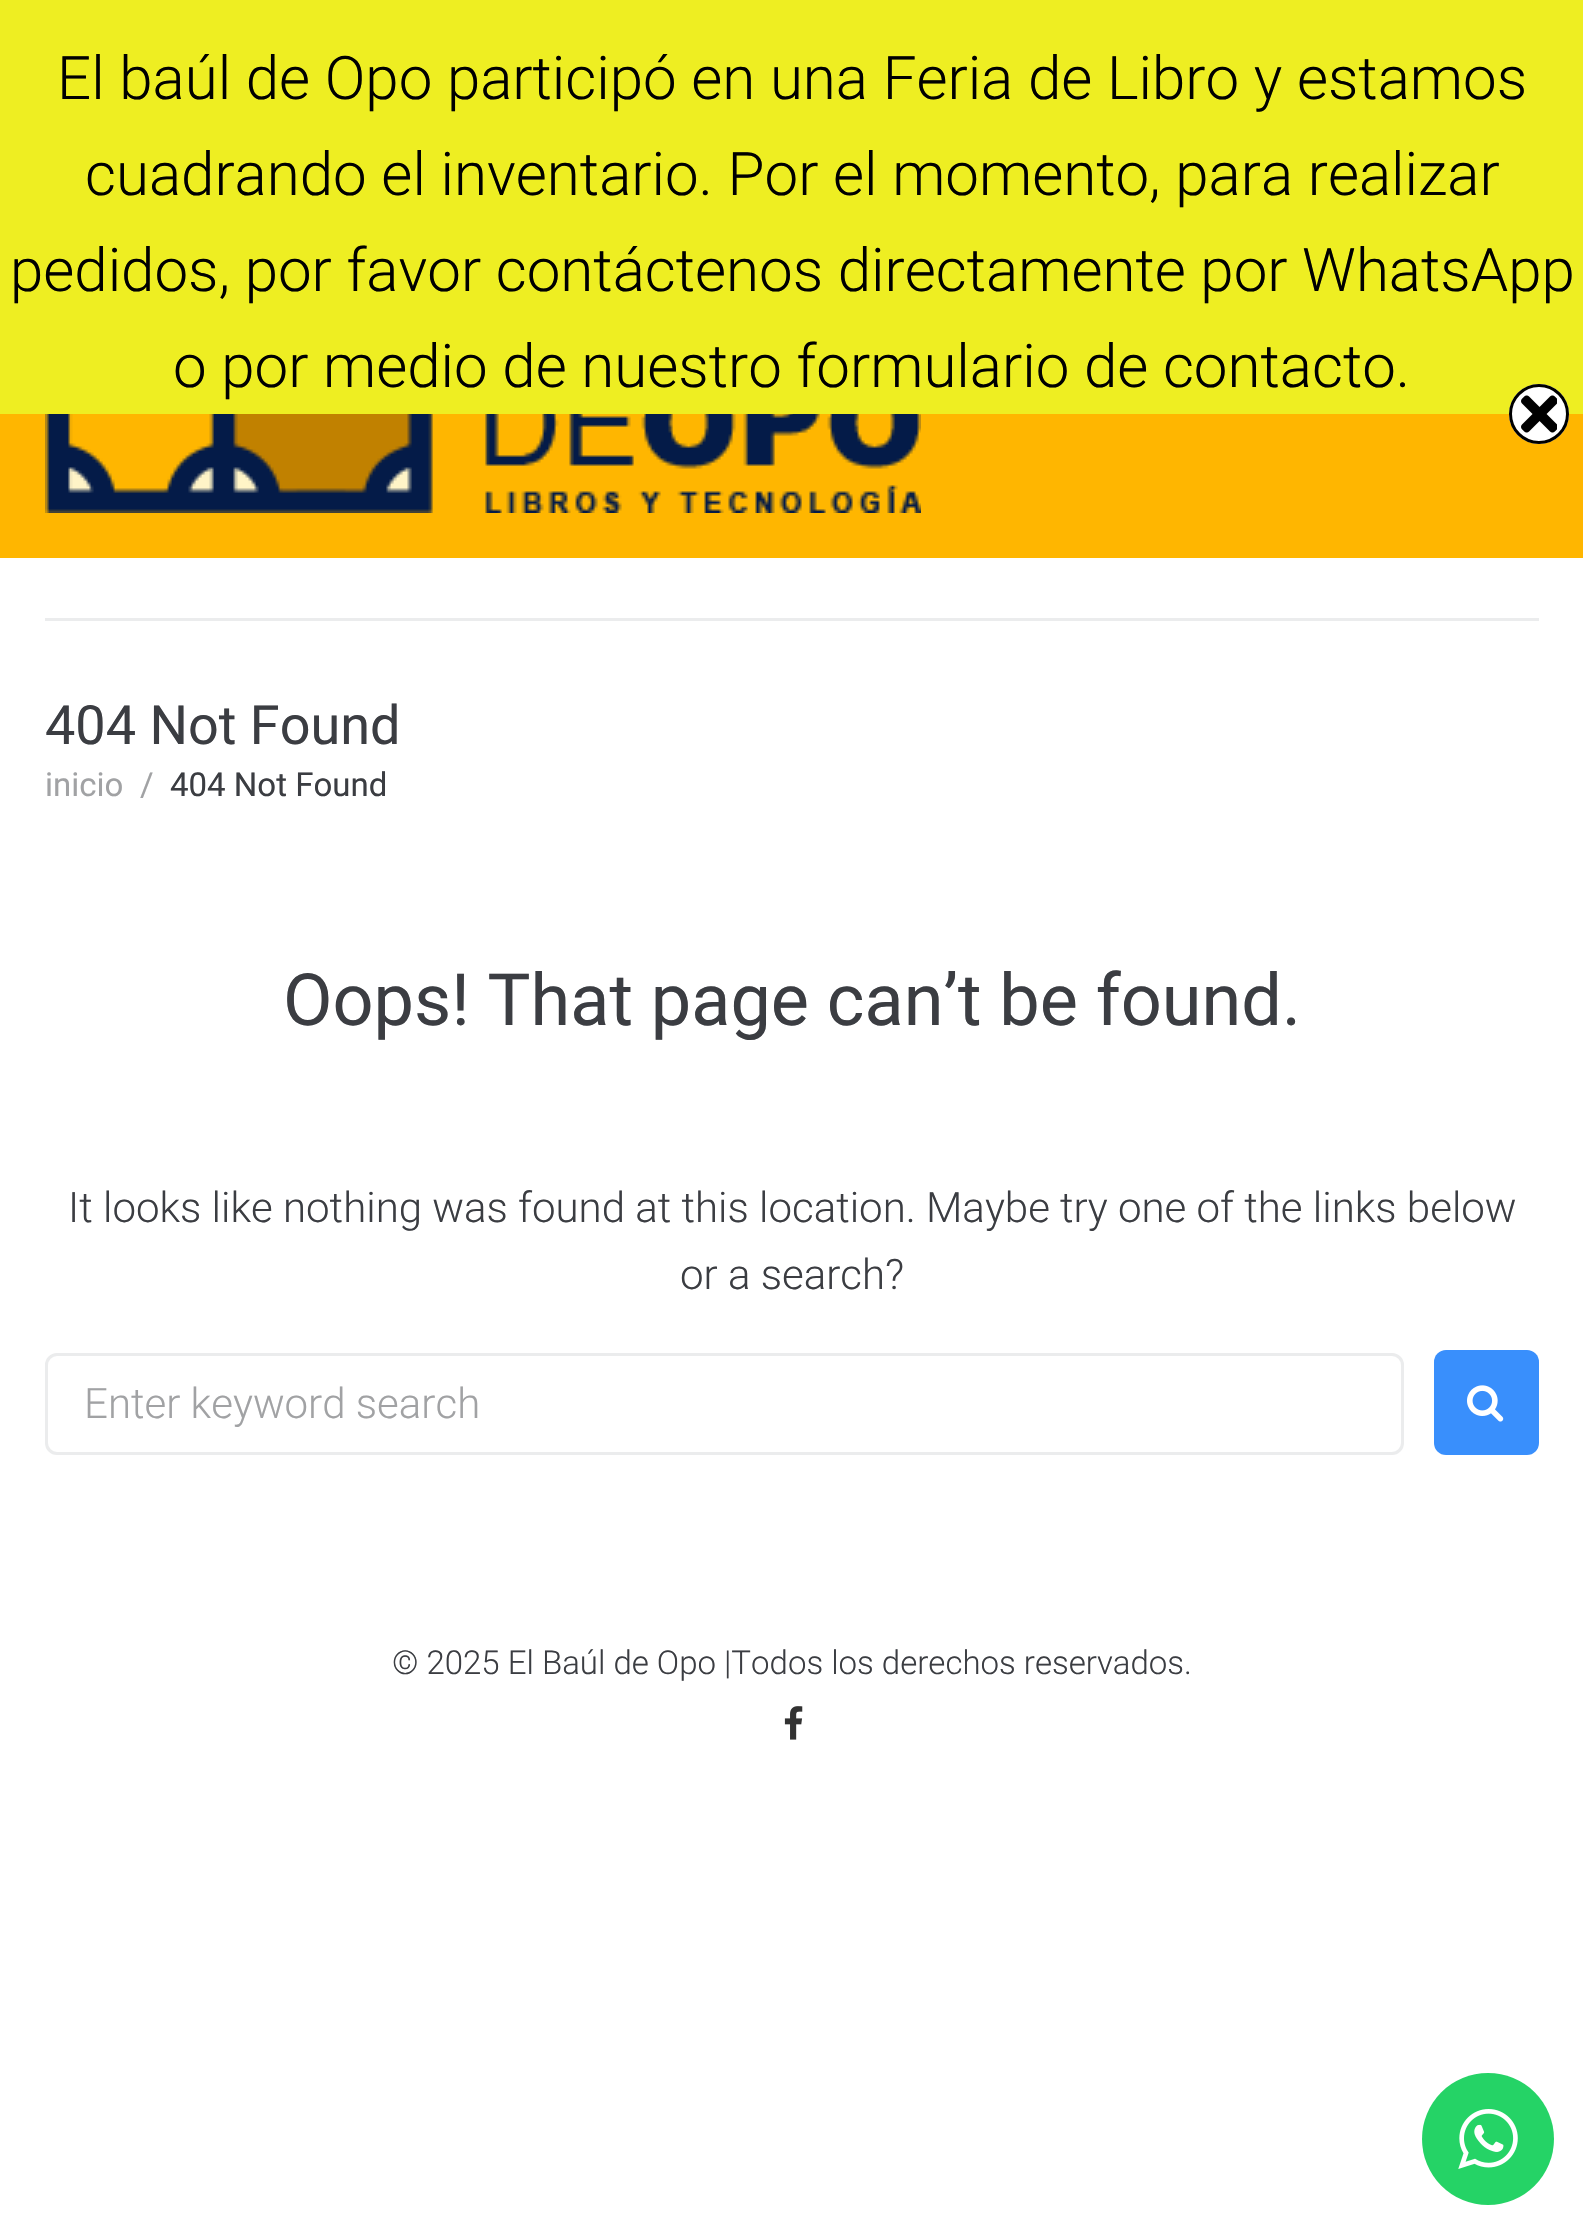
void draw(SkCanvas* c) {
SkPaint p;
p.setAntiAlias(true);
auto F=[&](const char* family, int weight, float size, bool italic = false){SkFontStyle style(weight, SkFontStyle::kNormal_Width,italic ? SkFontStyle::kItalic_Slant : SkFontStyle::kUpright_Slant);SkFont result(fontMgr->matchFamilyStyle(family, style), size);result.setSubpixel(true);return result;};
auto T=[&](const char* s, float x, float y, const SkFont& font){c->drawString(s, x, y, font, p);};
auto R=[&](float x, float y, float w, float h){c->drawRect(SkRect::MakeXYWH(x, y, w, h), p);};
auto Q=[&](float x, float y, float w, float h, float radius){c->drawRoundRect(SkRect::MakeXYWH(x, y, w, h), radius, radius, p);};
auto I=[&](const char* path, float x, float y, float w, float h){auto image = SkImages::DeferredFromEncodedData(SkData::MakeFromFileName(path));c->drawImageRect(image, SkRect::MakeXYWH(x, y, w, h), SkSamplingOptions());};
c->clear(0xffffffff);
p.setColor(0xffeeee22);
R(0,0,1583,414);
auto f1 = F("Roboto",300,60);
p.setColor(0xff000000);
T("El baúl de Opo participó en una Feria de Libro y estamos",57,99,f1);
T("cuadrando el inventario. Por el momento, para realizar",85,195,f1);
T("pedidos, por favor contáctenos directamente por WhatsApp",10,291,f1);
T("o por medio de nuestro formulario de contacto.",173,387,f1);
p.setColor(0xffffb600);
R(0,414,1583,144);
p.setColor(0xffffffff);
c->drawCircle(1539,414,30,p);
I("1.png",1521,395,36,38);
p.setStroke(true);
p.setStrokeWidth(3);
p.setColor(0xff000000);
c->drawCircle(1539,414,28.5,p);
I("2.png",45,414,876,99);
p.setStroke(false);
p.setColor(0xffebeced);
R(45,618,1494,3);
auto f2 = F("Roboto",400,54);
p.setColor(0xff3b3d42);
T("404 Not Found",45,744,f2);
auto f3 = F("Roboto",400,33);
p.setColor(0xffa1a2a4);
T("inicio",45,796,f3);
T("/",140,796,f3);
p.setColor(0xff3b3d42);
T("404 Not Found",170,796,f3);
auto f4 = F("Roboto",400,72);
T("Oops! That page can’t be found.",283,1025,f4);
auto f5 = F("Roboto",300,42);
T("It looks like nothing was found at this location. Maybe try one of the links below",68,1222,f5);
T("or a search?",680,1289,f5);
p.setStroke(true);
p.setColor(0xffebeced);
c->drawRoundRect(SkRect::MakeXYWH(46.5,1354.5,1356,99),10.5,10.5,p);
p.setStroke(false);
p.setColor(0xffa1a2a4);
T("Enter keyword search",84,1418,f5);
p.setColor(0xff398ffc);
Q(1434,1350,105,105,12);
I("3.png",1467,1385,37,37);
auto f6 = F("Roboto",300,33);
p.setColor(0xff3b3d42);
T("© 2025 El Baúl de Opo |Todos los derechos reservados.",392,1674,f6);
I("4.png",784,1706,19,34);
p.setColor(0xff25d366);
c->drawCircle(1488,2139,66,p);
I("5.png",1458,2109,60,60);
}
